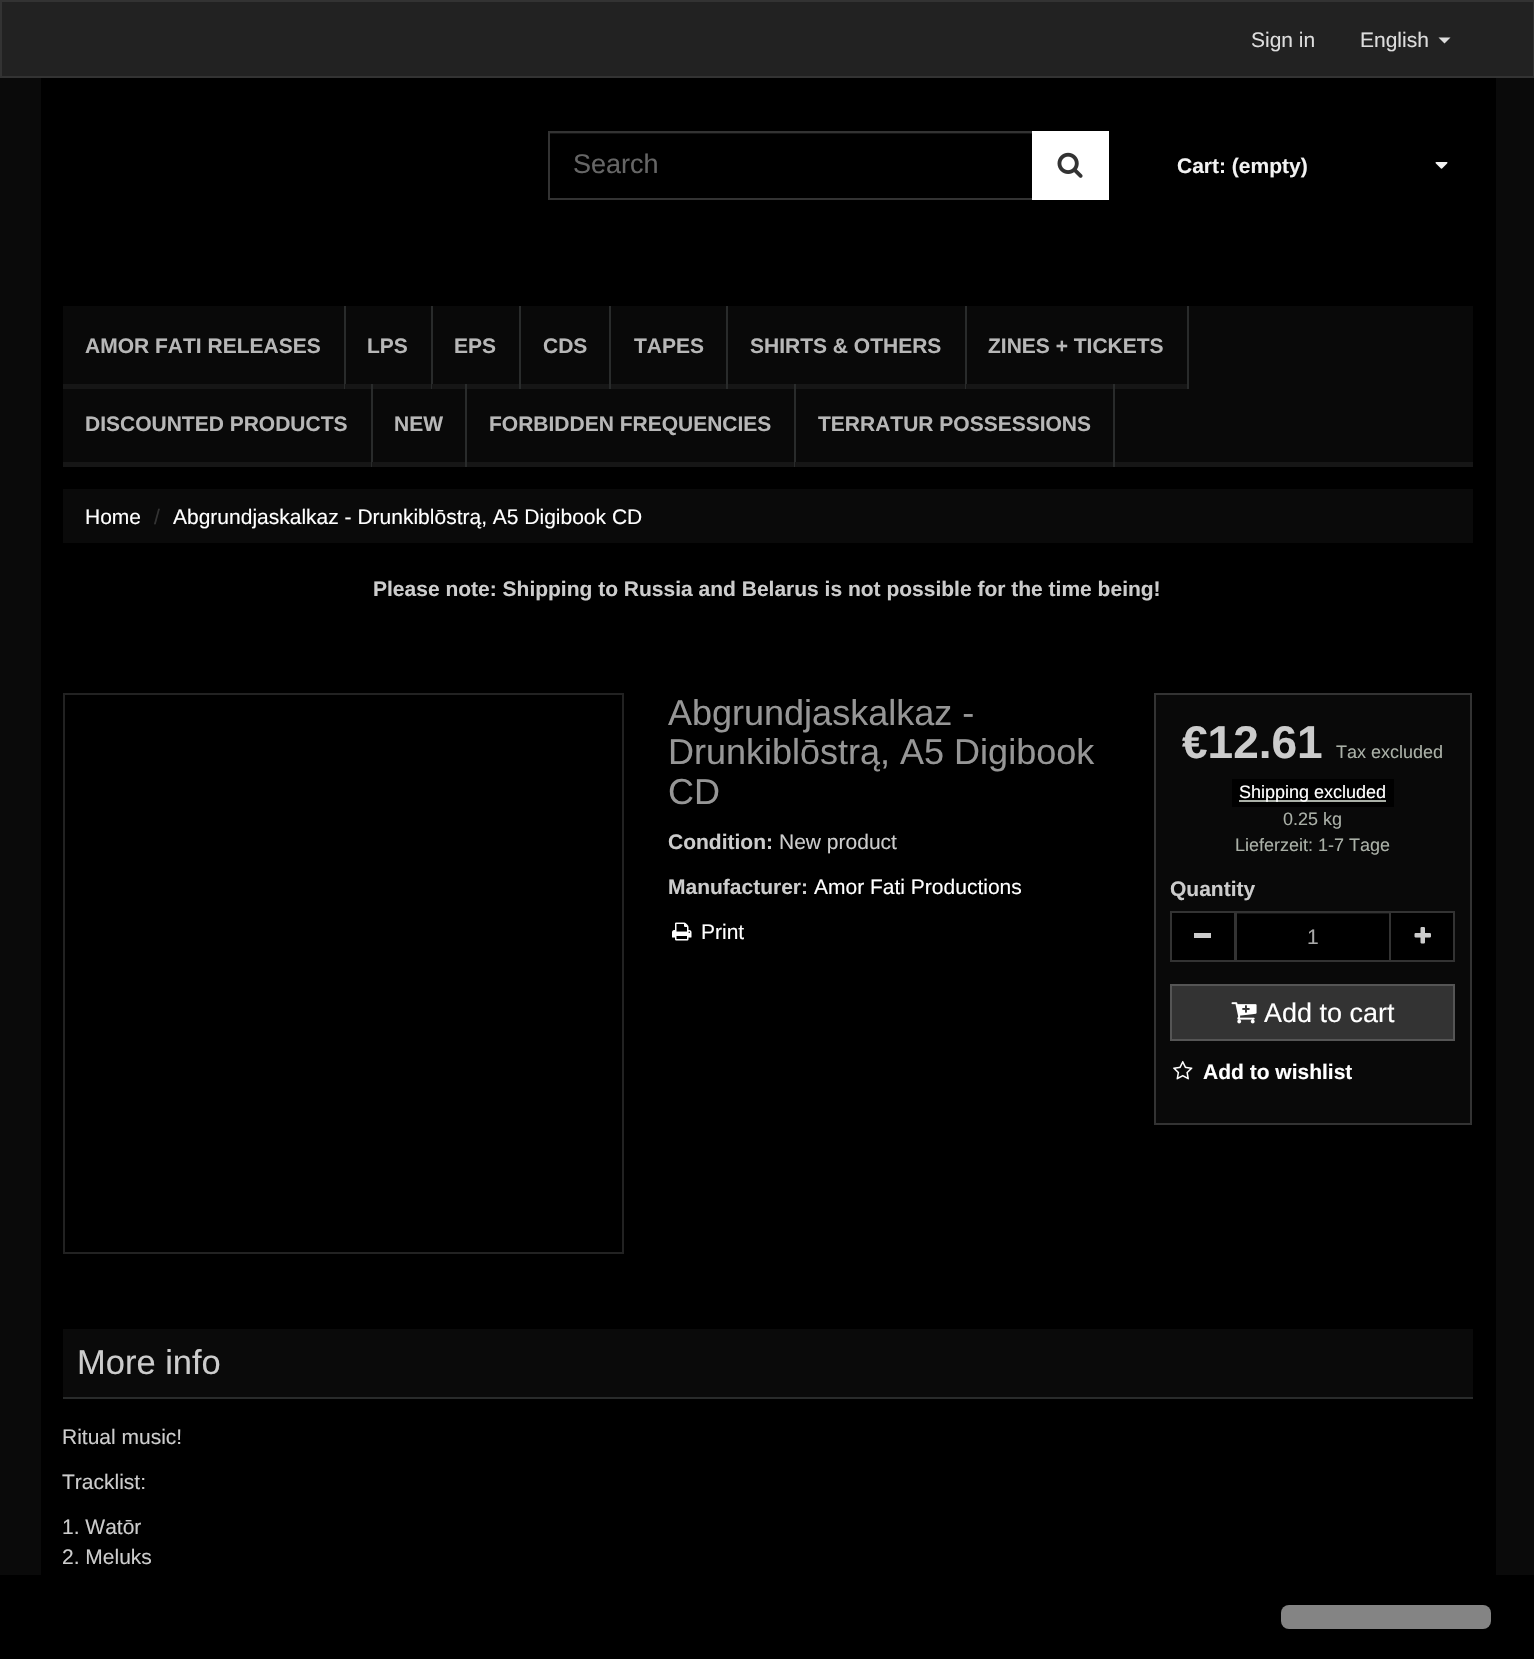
void draw(SkCanvas* c) {
SkPaint p;
p.setAntiAlias(true);
auto F=[&](const char* family, int weight, float size, bool italic = false){SkFontStyle style(weight, SkFontStyle::kNormal_Width,italic ? SkFontStyle::kItalic_Slant : SkFontStyle::kUpright_Slant);SkFont result(fontMgr->matchFamilyStyle(family, style), size);result.setSubpixel(true);return result;};
auto T=[&](const char* s, float x, float y, const SkFont& font){c->drawString(s, x, y, font, p);};
auto R=[&](float x, float y, float w, float h){c->drawRect(SkRect::MakeXYWH(x, y, w, h), p);};
auto Q=[&](float x, float y, float w, float h, float radius){c->drawRoundRect(SkRect::MakeXYWH(x, y, w, h), radius, radius, p);};
auto I=[&](const char* path, float x, float y, float w, float h){auto image = SkImages::DeferredFromEncodedData(SkData::MakeFromFileName(path));c->drawImageRect(image, SkRect::MakeXYWH(x, y, w, h), SkSamplingOptions());};
auto P=[&](const char* data, bool evenOdd = false){SkPath result = *SkParsePath::FromSVGString(data);if (evenOdd) result.setFillType(SkPathFillType::kEvenOdd);return result;};
c->clear(0xff0a0a0a);
p.setColor(0xff222222);
c->drawRect(SkRect::MakeXYWH(1,1,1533,76),p);
p.setStroke(true);
p.setStrokeWidth(2);
p.setColor(0xff333333);
c->drawRect(SkRect::MakeXYWH(1,1,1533,76),p);
auto f1 = F("Liberation Sans",400,21);
p.setStroke(false);
p.setColor(0xffdddddd);
T("Sign in",1251,47,f1);
T("English",1360,47,f1);
c->drawPath(P("M1438.5 37.5h12l-6 6z"),p);
p.setColor(0xff000000);
R(41,78,1455,1497);
p.setColor(0xff131313);
R(549,133,483,1);
p.setStroke(true);
p.setColor(0xff333333);
c->drawRect(SkRect::MakeXYWH(549,132,484,67),p);
auto f2 = F("Liberation Sans",400,27);
p.setStroke(false);
p.setColor(0xff666666);
T("Search",573,173,f2);
p.setColor(0xffffffff);
R(1032,131,77,69);
I("1.png",1057,152,26,26);
auto f3 = F("Liberation Sans",700,21);
p.setColor(0xfff2f2f2);
T("Cart: (empty)",1177,173,f3);
I("2.png",1435,162,13,7);
p.setColor(0xff090909);
R(63,306,1410,156);
p.setColor(0xff161616);
R(63,462,1410,5);
p.setColor(0xff292b2b);
R(344,306,2,83);
p.setColor(0xff161616);
R(63,384,281,5);
p.setColor(0xffb7b7b7);
T("AMOR FATI RELEASES",85,353,f3);
p.setColor(0xff292b2b);
R(431,306,2,83);
p.setColor(0xff161616);
R(345,384,86,5);
p.setColor(0xffb7b7b7);
T("LPS",367,353,f3);
p.setColor(0xff292b2b);
R(519,306,2,83);
p.setColor(0xff161616);
R(432,384,87,5);
p.setColor(0xffb7b7b7);
T("EPS",454,353,f3);
p.setColor(0xff292b2b);
R(609,306,2,83);
p.setColor(0xff161616);
R(521,384,88,5);
p.setColor(0xffb7b7b7);
T("CDS",543,353,f3);
p.setColor(0xff292b2b);
R(726,306,2,83);
p.setColor(0xff161616);
R(611,384,115,5);
p.setColor(0xffb7b7b7);
T("TAPES",634,353,f3);
p.setColor(0xff292b2b);
R(965,306,2,83);
p.setColor(0xff161616);
R(728,384,237,5);
p.setColor(0xffb7b7b7);
T("SHIRTS & OTHERS",750,353,f3);
p.setColor(0xff292b2b);
R(1187,306,2,83);
p.setColor(0xff161616);
R(966,384,221,5);
p.setColor(0xffb7b7b7);
T("ZINES + TICKETS",988,353,f3);
p.setColor(0xff292b2b);
R(371,384,2,83);
p.setColor(0xffb7b7b7);
T("DISCOUNTED PRODUCTS",85,431,f3);
p.setColor(0xff292b2b);
R(465,384,2,83);
p.setColor(0xff161616);
R(372,462,1,5);
p.setColor(0xffb7b7b7);
T("NEW",394,431,f3);
p.setColor(0xff292b2b);
R(794,384,2,83);
p.setColor(0xffb7b7b7);
T("FORBIDDEN FREQUENCIES",489,431,f3);
p.setColor(0xff292b2b);
R(1113,384,2,83);
p.setColor(0xff161616);
R(795,462,1,5);
p.setColor(0xffb7b7b7);
T("TERRATUR POSSESSIONS",818,431,f3);
p.setColor(0xff0a0a0a);
R(63,489,1410,54);
p.setColor(0xffffffff);
T("Home",85,524,f1);
p.setColor(0xff333333);
T("/",154,524,f1);
p.setColor(0xffffffff);
T("Abgrundjaskalkaz - Drunkiblōstrą, A5 Digibook CD",173,524,f1);
p.setColor(0xffcccccc);
T("Please note: Shipping to Russia and Belarus is not possible for the time being!",373,596,f3);
p.setStroke(true);
p.setColor(0xff222222);
c->drawRect(SkRect::MakeXYWH(64,694,559,559),p);
auto f4 = F("Liberation Sans",400,36);
p.setStroke(false);
p.setColor(0xff969696);
T("Abgrundjaskalkaz -",668,725,f4);
T("Drunkiblōstrą, A5 Digibook",668,764,f4);
T("CD",668,804,f4);
p.setColor(0xffcccccc);
T("Condition:",668,849,f3);
T("New product",779,849,f1);
T("Manufacturer:",668,894,f3);
p.setColor(0xffffffff);
T("Amor Fati Productions",814,894,f1);
I("3.png",672,922,20,19);
T("Print",701,939,f1);
p.setColor(0xff090909);
c->drawRect(SkRect::MakeXYWH(1155,694,316,430),p);
p.setStroke(true);
p.setColor(0xff333333);
c->drawRect(SkRect::MakeXYWH(1155,694,316,430),p);
auto f5 = F("Liberation Sans",700,46);
p.setStroke(false);
p.setColor(0xffcccccc);
T("€12.61",1182,758,f5);
auto f6 = F("Liberation Sans",400,18);
p.setColor(0xffaab0a7);
T("Tax excluded",1336,758,f6);
p.setColor(0xff000000);
R(1232,779,162,28);
p.setColor(0xffaab0a7);
R(1239,800,147,2);
p.setColor(0xffffffff);
T("Shipping excluded",1239,798,f6);
p.setColor(0xffaab0a7);
T("0.25 kg",1283,825,f6);
T("Lieferzeit: 1-7 Tage",1235,851,f6);
p.setColor(0xffcccccc);
T("Quantity",1170,896,f3);
p.setColor(0xff000000);
c->drawRect(SkRect::MakeXYWH(1171,912,64,49),p);
p.setStroke(true);
p.setColor(0xff333333);
c->drawRect(SkRect::MakeXYWH(1171,912,64,49),p);
p.setStroke(false);
p.setColor(0xffcccccc);
R(1194,933,17,5);
p.setColor(0xff000000);
R(1237,914,152,46);
p.setColor(0xff131313);
R(1236,913,153,1);
p.setStroke(true);
p.setColor(0xff333333);
c->drawRect(SkRect::MakeXYWH(1236,912,154,49),p);
p.setStroke(false);
p.setColor(0xffaaaaaa);
T("1",1307,944,f1);
p.setColor(0xff000000);
c->drawRect(SkRect::MakeXYWH(1390,912,64,49),p);
p.setStroke(true);
p.setColor(0xff333333);
c->drawRect(SkRect::MakeXYWH(1390,912,64,49),p);
I("4.png",1414,927,17,17);
p.setStroke(false);
c->drawRect(SkRect::MakeXYWH(1171,985,283,55),p);
p.setStroke(true);
p.setColor(0xff555555);
c->drawRect(SkRect::MakeXYWH(1171,985,283,55),p);
I("5.png",1231,1002,26,22);
p.setStroke(false);
p.setColor(0xffffffff);
T("Add to cart",1264,1022,f2);
I("6.png",1173,1060,20,20);
T("Add to wishlist",1203,1079,f3);
p.setColor(0xff0a0a0a);
R(63,1329,1410,68);
p.setColor(0xff292b2b);
R(63,1397,1410,2);
auto f7 = F("Liberation Sans",400,34.5);
p.setColor(0xffcccccc);
T("More info",77,1374,f7);
T("Ritual music!",62,1444,f1);
T("Tracklist:",62,1489,f1);
T("1. Watōr",62,1534,f1);
T("2. Meluks",62,1564,f1);
p.setColor(0xff000000);
R(0,1575,1534,84);
p.setColor(0xff848484);
Q(1281,1605,210,24,8);
}
